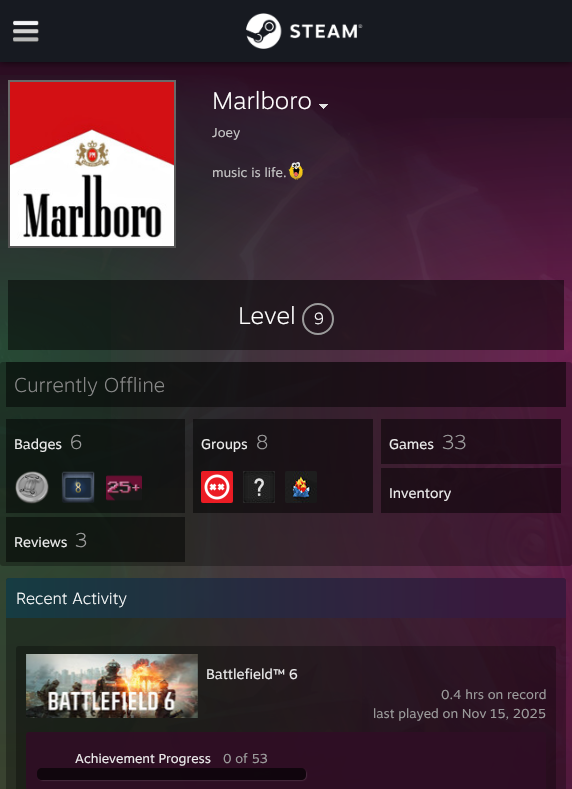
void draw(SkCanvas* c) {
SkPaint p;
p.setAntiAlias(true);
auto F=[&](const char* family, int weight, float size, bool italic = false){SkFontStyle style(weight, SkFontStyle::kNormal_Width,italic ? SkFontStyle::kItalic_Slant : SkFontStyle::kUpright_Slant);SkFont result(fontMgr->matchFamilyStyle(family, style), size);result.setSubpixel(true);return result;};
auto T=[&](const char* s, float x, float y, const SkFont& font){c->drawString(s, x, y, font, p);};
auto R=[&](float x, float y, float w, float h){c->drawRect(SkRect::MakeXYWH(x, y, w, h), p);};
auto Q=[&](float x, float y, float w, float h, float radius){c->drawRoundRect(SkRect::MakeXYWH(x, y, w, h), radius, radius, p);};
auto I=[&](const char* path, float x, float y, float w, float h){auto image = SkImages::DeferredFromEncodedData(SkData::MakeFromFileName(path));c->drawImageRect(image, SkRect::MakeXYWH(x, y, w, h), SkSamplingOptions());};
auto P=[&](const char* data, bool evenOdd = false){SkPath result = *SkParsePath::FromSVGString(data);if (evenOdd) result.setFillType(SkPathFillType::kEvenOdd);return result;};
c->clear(0xff000000);
I("3.png",0,67,572,722);
p.setColor(0xed2e0d24);
R(0,62,572,288);
p.setColor(0xbf000000);
p.setMaskFilter(SkMaskFilter::MakeBlur(kNormal_SkBlurStyle, 3.5));
c->drawRect(SkRect::MakeXYWH(0,0,572,62),p);
p.setMaskFilter(nullptr);
p.setColor(0xff171a21);
R(0,0,572,62);
I("1.png",13,20,26,22);
I("2.png",246,13,117,36);
{
const SkColor colors[] = {0x4009f363,0x0009f363};
const float stops[] = {0,.74};
SkMatrix m = SkMatrix::Translate(0,350).preScale(809,407);
p.setShader(SkGradientShader::MakeRadial({0, 0}, 1, colors, stops, 2, SkTileMode::kClamp, 0, &m));
p.setAlpha(255);
}
R(0,75,547,275);
{
const SkColor colors[] = {0x4df846b4,0x00f846b4};
const float stops[] = {0,.87};
SkMatrix m = SkMatrix::Translate(572,350).preScale(572,288);
p.setShader(SkGradientShader::MakeRadial({0, 0}, 1, colors, stops, 2, SkTileMode::kClamp, 0, &m));
p.setAlpha(255);
}
R(111,118,461,232);
{
const SkColor colors[] = {0xff6a6a6a,0xff555555};
const float stops[] = {.05,.95};
const SkPoint ends[] = {{92,80}, {92,248}};
p.setShader(SkGradientShader::MakeLinear(ends, colors, stops, 2, SkTileMode::kClamp));
p.setAlpha(255);
}
R(8,80,168,168);
I("4.png",10,82,164,164);
auto f1 = F("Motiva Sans",100,24);
p.setShader(nullptr);
p.setColor(0xffffffff);
T("Marlboro",212,109,f1);
I("5.png",319,104,9,5);
auto f2 = F("Motiva Sans",400,13);
p.setColor(0xffc4c4c4);
T("Joey",212,137,f2);
T("music is life.",212,177,f2);
I("6.png",288,162,16,18);
p.setColor(0x80000000);
R(8,280,556,70);
p.setColor(0xffffffff);
T("Level",238,324,f1);
p.setStroke(true);
p.setStrokeWidth(2);
p.setColor(0xff9b9b9b);
c->drawCircle(318,319,15,p);
auto f3 = F("Motiva Sans",100,16);
p.setStroke(false);
p.setColor(0xffffffff);
T("9",314,324,f3);
p.setColor(0xed2e0d24);
R(0,350,572,439);
{
const SkColor colors[] = {0x21eff309,0x00eff309};
const float stops[] = {0,.74};
SkMatrix m = SkMatrix::Translate(0,1443).preScale(809,1546);
p.setShader(SkGradientShader::MakeRadial({0, 0}, 1, colors, stops, 2, SkTileMode::kClamp, 0, &m));
p.setAlpha(255);
}
R(0,488,362,301);
{
const SkColor colors[] = {0x4009f363,0x0009f363};
const float stops[] = {0,.74};
SkMatrix m = SkMatrix::Translate(0,350).preScale(809,1546);
p.setShader(SkGradientShader::MakeRadial({0, 0}, 1, colors, stops, 2, SkTileMode::kClamp, 0, &m));
p.setAlpha(255);
}
R(0,350,547,439);
{
const SkColor colors[] = {0x4df846b4,0x00f846b4};
const float stops[] = {0,.87};
SkMatrix m = SkMatrix::Translate(572,350).preScale(572,1093);
p.setShader(SkGradientShader::MakeRadial({0, 0}, 1, colors, stops, 2, SkTileMode::kClamp, 0, &m));
p.setAlpha(255);
}
R(111,350,461,439);
p.setShader(nullptr);
p.setColor(0x4d000000);
Q(0,362,572,204,3);
p.setColor(0x80000000);
R(6,362,560,45);
auto f4 = F("Motiva Sans",100,20);
p.setColor(0xff898989);
T("Currently Offline",14,392,f4);
p.setColor(0x80000000);
R(6,419,179,94);
auto f5 = F("Motiva Sans",400,14);
p.setColor(0xffebebeb);
T("Badges",14,449,f5);
p.setColor(0xff9b9b9b);
T("6",70,449,f4);
I("7.png",15,471,34,33);
I("8.png",61,471,34,32);
I("9.png",106,475,36,26);
p.setColor(0x80000000);
R(381,419,180,45);
p.setColor(0xffebebeb);
T("Games",389,449,f5);
p.setColor(0xff9b9b9b);
T("33",442,449,f4);
p.setColor(0x80000000);
R(381,468,180,45);
p.setColor(0xffebebeb);
T("Inventory",389,498,f5);
p.setColor(0x80000000);
R(6,517,179,45);
p.setColor(0xffebebeb);
T("Reviews",14,547,f5);
p.setColor(0xff9b9b9b);
T("3",75,547,f4);
p.setColor(0x80000000);
R(193,419,180,94);
p.setColor(0xffebebeb);
T("Groups",201,449,f5);
p.setColor(0xff9b9b9b);
T("8",256,449,f4);
I("10.png",201,471,32,32);
I("11.png",243,471,32,32);
I("12.png",285,471,32,32);
p.setColor(0x4d000000);
Q(6,578,560,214,3);
{
const SkColor colors[] = {0xed143c44,0xed39183d};
const float stops[] = {0,.9};
const SkPoint ends[] = {{6,598}, {566,598}};
p.setShader(SkGradientShader::MakeLinear(ends, colors, stops, 2, SkTileMode::kClamp));
p.setAlpha(255);
}
c->drawPath(P("M9 578h554c1.5 0 3 1.5 3 3v37h-560v-37c0-1.5 1.5-3 3-3z"),p);
p.setShader(nullptr);
p.setColor(0xffffffff);
T("Recent Activity",16,604,f3);
p.setColor(0x4d000000);
Q(16,646,540,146,3);
I("13.png",26,654,172,64);
p.setColor(0xffebebeb);
T("Battlefield™ 6",206,679,f5);
p.setColor(0xff9b9b9b);
T("0.4 hrs on record",441,699,f2);
T("last played on Nov 15, 2025",373,718,f2);
p.setColor(0xed2e0d24);
Q(26,732,520,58,3);
p.setColor(0xffebebeb);
T("Achievement Progress",75,763,f2);
p.setColor(0xff9b9b9b);
T("0 of 53",223,763,f2);
c->save();
c->clipPath(P("M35 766h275v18h-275zm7 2h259c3 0 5 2 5 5v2c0 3-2 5-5 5h-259c-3 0-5-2-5-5v-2c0-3 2-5 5-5z",true),true);
p.setColor(0x1affffff);
p.setMaskFilter(SkMaskFilter::MakeBlur(kNormal_SkBlurStyle, .5));
c->drawRoundRect(SkRect::MakeXYWH(38,769,269,12),5,5,p);
p.setMaskFilter(nullptr);
c->restore();
p.setColor(0x4d000000);
Q(37,768,269,12,5);
p.setColor(0x80000000);
c->drawPath(P("M42 768h259c3 0 5 2 5 5v2c0 3-2 5-5 5h-259c-3 0-5-2-5-5v-2c0-3 2-5 5-5z"),p);
}
